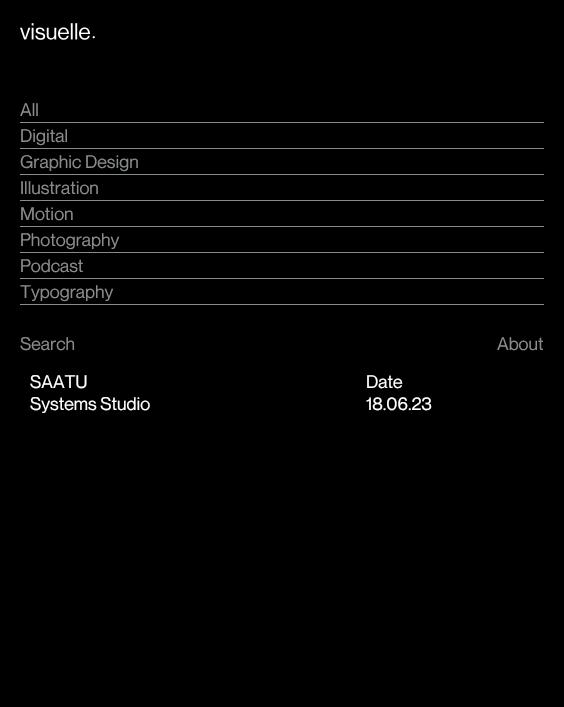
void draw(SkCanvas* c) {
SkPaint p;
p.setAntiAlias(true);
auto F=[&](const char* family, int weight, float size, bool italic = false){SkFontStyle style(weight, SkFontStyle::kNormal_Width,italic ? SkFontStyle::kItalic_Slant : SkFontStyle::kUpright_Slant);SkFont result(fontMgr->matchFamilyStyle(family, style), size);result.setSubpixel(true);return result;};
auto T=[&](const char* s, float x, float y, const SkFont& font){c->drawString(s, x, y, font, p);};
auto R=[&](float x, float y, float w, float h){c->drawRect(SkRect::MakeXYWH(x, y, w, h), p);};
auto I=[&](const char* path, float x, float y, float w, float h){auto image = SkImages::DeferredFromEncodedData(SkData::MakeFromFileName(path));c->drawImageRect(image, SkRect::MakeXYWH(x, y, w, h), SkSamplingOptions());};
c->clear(0xff000000);
I("1.png",20,23,70,17);
auto f1 = F("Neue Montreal",400,18);
p.setColor(0xffffffff);
T(".",92,38,f1);
p.setColor(0xff878b89);
R(20,122,524,1);
T("All",20,116,f1);
R(20,148,524,1);
T("Digital",20,142,f1);
R(20,174,524,1);
T("Graphic Design",20,168,f1);
R(20,200,524,1);
T("Illustration",20,194,f1);
R(20,226,524,1);
T("Motion",20,220,f1);
R(20,252,524,1);
T("Photography",20,246,f1);
R(20,278,524,1);
T("Podcast",20,272,f1);
R(20,304,524,1);
T("Typography",20,298,f1);
T("Search",20,350,f1);
T("About",497,350,f1);
p.setColor(0xffffffff);
T("SAATU",30,388,f1);
T("Systems Studio",30,410,f1);
T("Date",366,388,f1);
T("18.06.23",366,410,f1);
}
